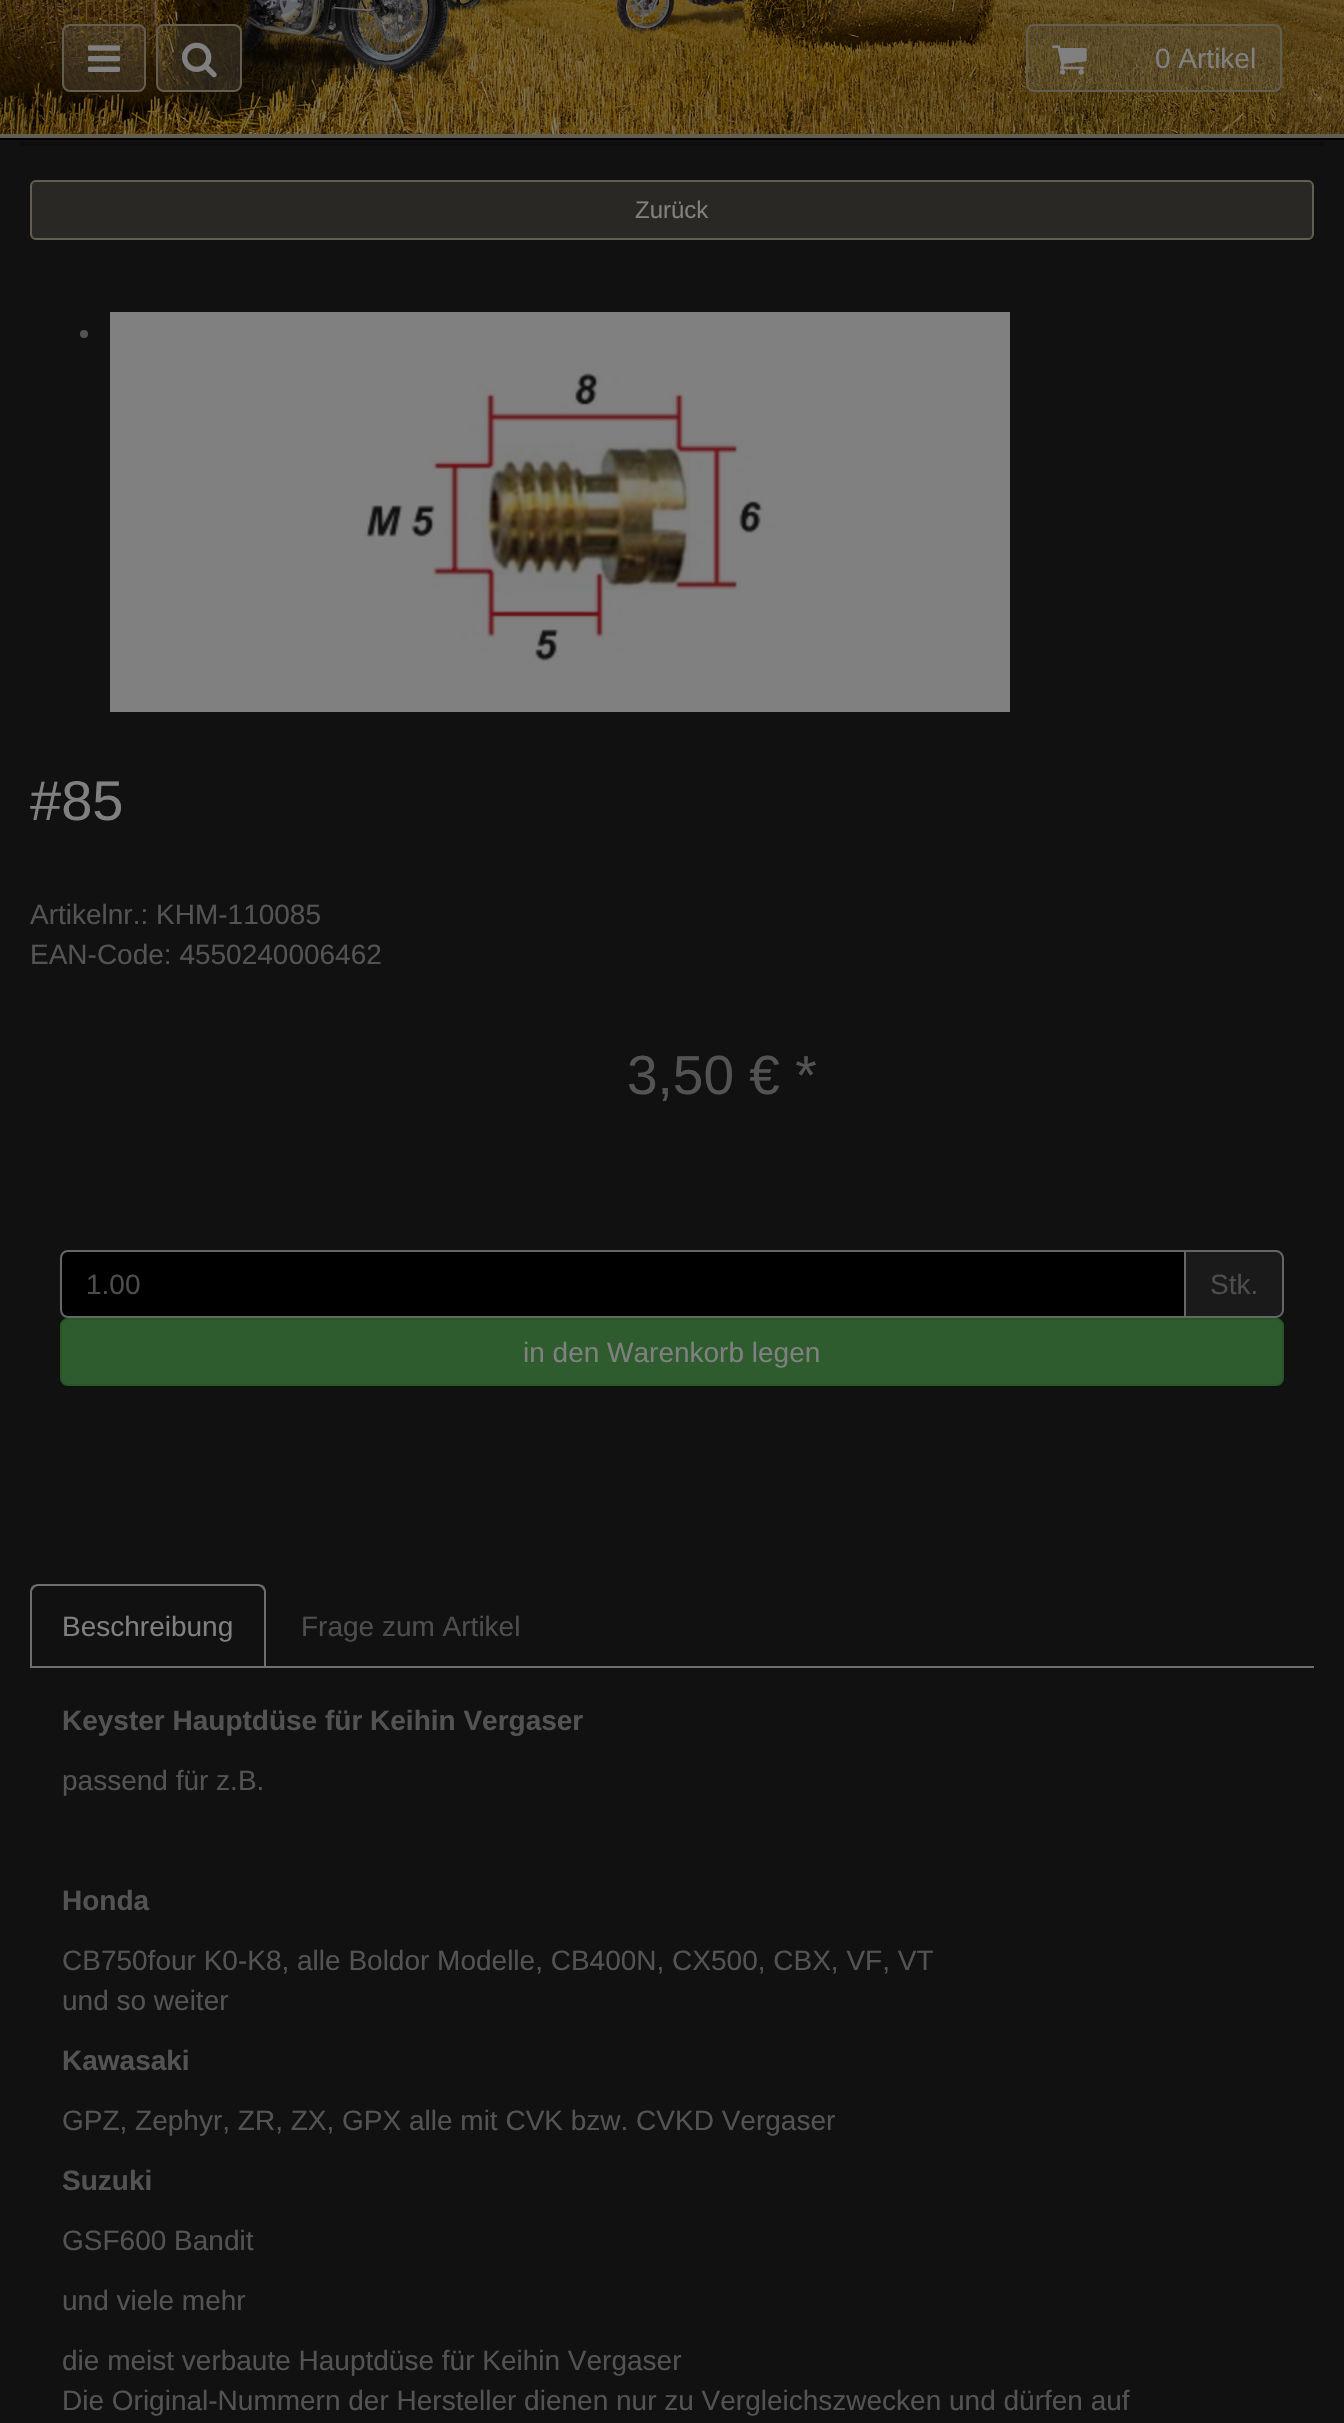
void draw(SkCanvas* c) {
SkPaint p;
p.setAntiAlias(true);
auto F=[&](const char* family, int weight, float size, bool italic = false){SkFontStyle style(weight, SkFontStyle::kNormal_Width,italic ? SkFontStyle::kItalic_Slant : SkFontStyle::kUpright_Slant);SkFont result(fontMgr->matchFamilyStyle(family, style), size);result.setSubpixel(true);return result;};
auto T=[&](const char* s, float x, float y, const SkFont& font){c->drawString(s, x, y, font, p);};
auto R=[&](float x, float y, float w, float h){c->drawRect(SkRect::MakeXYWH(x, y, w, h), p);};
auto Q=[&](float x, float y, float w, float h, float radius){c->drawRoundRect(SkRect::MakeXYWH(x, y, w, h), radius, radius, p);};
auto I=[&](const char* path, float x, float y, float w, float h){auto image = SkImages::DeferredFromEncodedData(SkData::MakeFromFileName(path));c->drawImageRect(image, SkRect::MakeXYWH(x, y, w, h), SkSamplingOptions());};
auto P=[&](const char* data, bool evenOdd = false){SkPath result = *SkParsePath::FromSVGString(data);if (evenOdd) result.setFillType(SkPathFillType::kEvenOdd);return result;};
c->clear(0xff111111);
I("1.png",0,0,1344,134);
p.setColor(0x4d635e50);
c->drawRoundRect(SkRect::MakeXYWH(63,25,82,66),7,7,p);
p.setStroke(true);
p.setStrokeWidth(2);
p.setColor(0xff635e50);
c->drawRoundRect(SkRect::MakeXYWH(63,25,82,66),7,7,p);
I("2.png",88,45,32,27);
p.setStroke(false);
p.setColor(0x4d635e50);
c->drawRoundRect(SkRect::MakeXYWH(157,25,84,66),7,7,p);
p.setStroke(true);
p.setColor(0xff635e50);
c->drawRoundRect(SkRect::MakeXYWH(157,25,84,66),7,7,p);
I("3.png",182,42,35,36);
p.setStroke(false);
p.setColor(0x4d635e50);
c->drawRoundRect(SkRect::MakeXYWH(1027,25,254,66),7,7,p);
p.setStroke(true);
p.setColor(0xff635e50);
c->drawRoundRect(SkRect::MakeXYWH(1027,25,254,66),7,7,p);
I("4.png",1052,45,35,30);
auto f1 = F("Liberation Sans",400,28);
p.setStroke(false);
p.setColor(0xff808080);
T("0 Artikel",1155,68,f1);
p.setColor(0xff635e50);
R(0,134,1344,4);
p.setColor(0xff000000);
R(0,138,1344,2);
p.setColor(0xff0d0d0d);
Q(20,142,1304,4,2);
p.setColor(0xff292824);
c->drawRoundRect(SkRect::MakeXYWH(31,181,1282,58),5,5,p);
p.setStroke(true);
p.setColor(0xff635e50);
c->drawRoundRect(SkRect::MakeXYWH(31,181,1282,58),5,5,p);
auto f2 = F("Liberation Sans",400,24);
p.setStroke(false);
p.setColor(0xff808080);
T("Zurück",635,218,f2);
p.setColor(0xff535353);
c->drawCircle(84,334,4,p);
I("5.png",110,312,900,400);
auto f3 = F("Liberation Sans",400,56);
p.setColor(0xff808080);
T("#85",30,820,f3);
p.setColor(0xff535353);
T("Artikelnr.: KHM-110085",30,924,f1);
T("EAN-Code: 4550240006462",30,964,f1);
auto f4 = F("Liberation Sans",400,55);
T("3,50 € *",627,1094,f4);
p.setColor(0xff000000);
c->drawPath(P("M68 1251h1117v66h-1117c-4 0-7-3-7-7v-52c0-4 3-7 7-7z"),p);
p.setStroke(true);
p.setColor(0xff666666);
c->drawPath(P("M68 1251h1117v66h-1117c-4 0-7-3-7-7v-52c0-4 3-7 7-7z"),p);
p.setStroke(false);
p.setColor(0xff4d4d4d);
T("1.00",86,1294,f1);
p.setColor(0xff1a1a1a);
c->drawPath(P("M1186 1250h90c4.5 0 8 3.5 8 8v52c0 4.5-3.5 8-8 8h-90z"),p);
p.setColor(0xff666666);
c->drawPath(P("M1186 1250h90c4 0 8 4 8 8v52c0 4-4 8-8 8h-90zm0 2h90c3 0 6 3 6 6v52c0 3-3 6-6 6h-90z",true),p);
p.setColor(0xff4d4d4d);
T("Stk.",1210,1294,f1);
p.setColor(0xff2e5c2e);
c->drawRoundRect(SkRect::MakeXYWH(61,1319,1222,66),7,7,p);
p.setStroke(true);
p.setColor(0xff265726);
c->drawRoundRect(SkRect::MakeXYWH(61,1319,1222,66),7,7,p);
p.setStroke(false);
p.setColor(0xff808080);
T("in den Warenkorb legen",523,1362,f1);
p.setColor(0xff6f6f6f);
R(30,1666,1284,2);
c->drawPath(P("M38 1584c-2 0-4 1-6 2l2 2c1-1 2-2 4-2h220c2 0 3 1 4 2l2-2c-2-1-4-2-6-2z"),p);
c->drawPath(P("M266 1668v-76c0-2-1-4-2-6l-2 2l2 3v75z"),p);
c->drawPath(P("M30 1668l2-2v-75l2-3l-2-2c-1 2-2 4-2 6z"),p);
p.setColor(0xff808080);
T("Beschreibung",62,1636,f1);
p.setColor(0xff4d4d4d);
T("Frage zum Artikel",301,1636,f1);
auto f5 = F("Liberation Sans",700,28);
p.setColor(0xff535353);
T("Keyster Hauptdüse für Keihin Vergaser",62,1730,f5);
T("passend für z.B.",62,1790,f1);
T("Honda",62,1910,f5);
T("CB750four K0-K8, alle Boldor Modelle, CB400N, CX500, CBX, VF, VT",62,1970,f1);
T("und so weiter",62,2010,f1);
T("Kawasaki",62,2070,f5);
T("GPZ, Zephyr, ZR, ZX, GPX alle mit CVK bzw. CVKD Vergaser",62,2130,f1);
T("Suzuki",62,2190,f5);
T("GSF600 Bandit",62,2250,f1);
T("und viele mehr",62,2310,f1);
T("die meist verbaute Hauptdüse für Keihin Vergaser",62,2370,f1);
T("Die Original-Nummern der Hersteller dienen nur zu Vergleichszwecken und dürfen auf",62,2410,f1);
}
